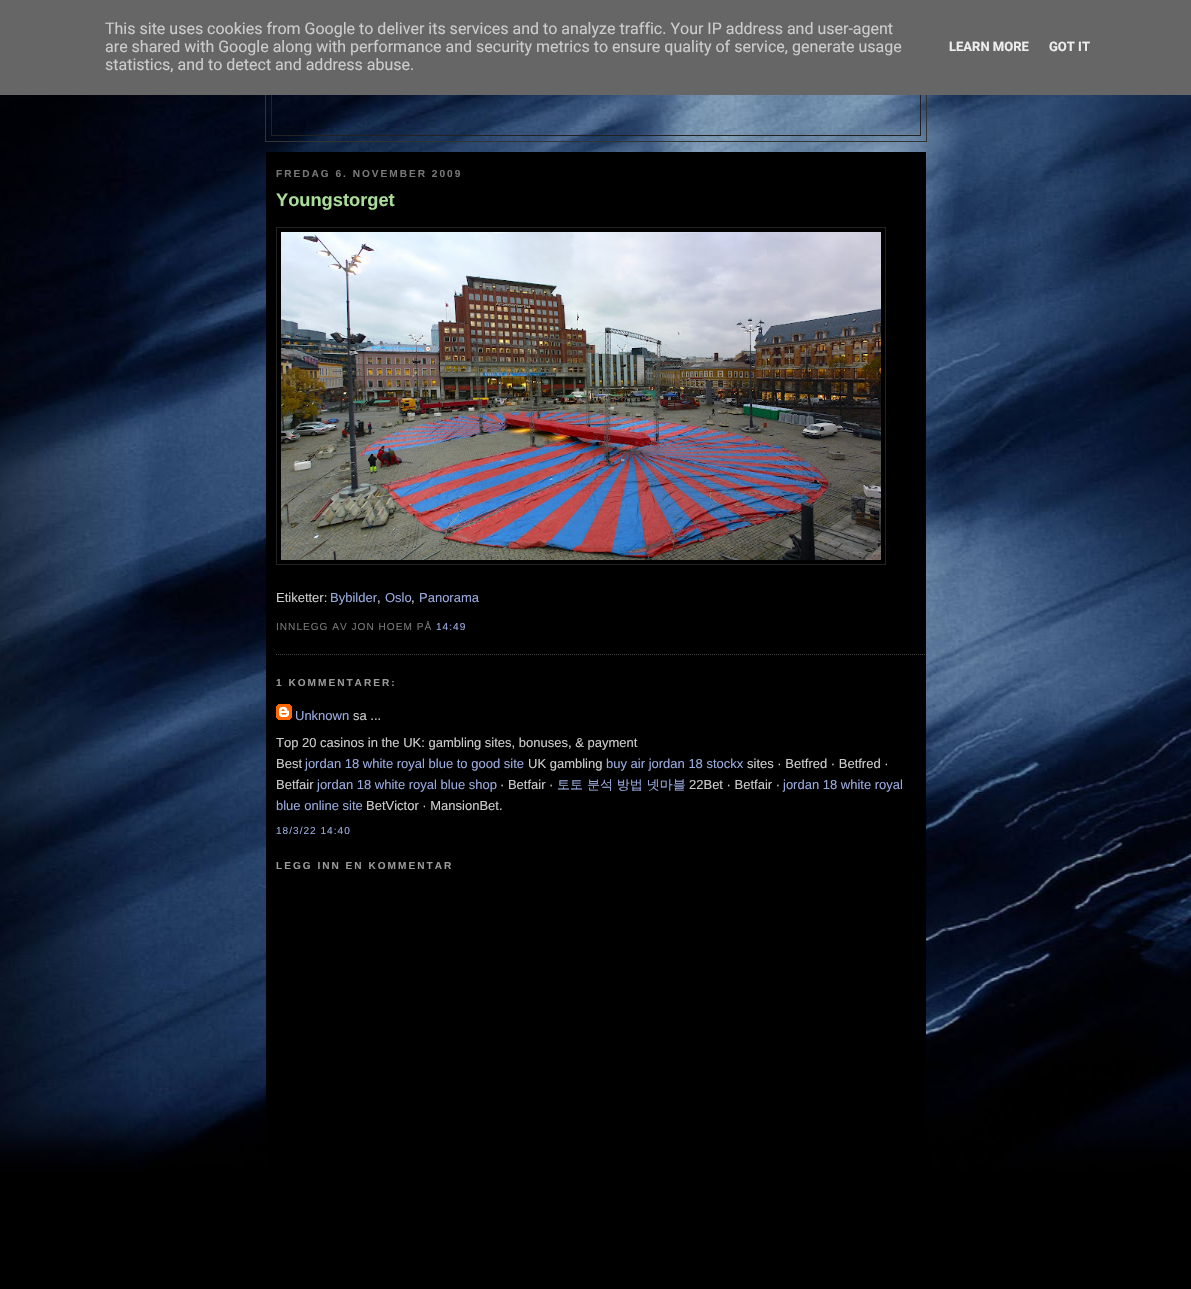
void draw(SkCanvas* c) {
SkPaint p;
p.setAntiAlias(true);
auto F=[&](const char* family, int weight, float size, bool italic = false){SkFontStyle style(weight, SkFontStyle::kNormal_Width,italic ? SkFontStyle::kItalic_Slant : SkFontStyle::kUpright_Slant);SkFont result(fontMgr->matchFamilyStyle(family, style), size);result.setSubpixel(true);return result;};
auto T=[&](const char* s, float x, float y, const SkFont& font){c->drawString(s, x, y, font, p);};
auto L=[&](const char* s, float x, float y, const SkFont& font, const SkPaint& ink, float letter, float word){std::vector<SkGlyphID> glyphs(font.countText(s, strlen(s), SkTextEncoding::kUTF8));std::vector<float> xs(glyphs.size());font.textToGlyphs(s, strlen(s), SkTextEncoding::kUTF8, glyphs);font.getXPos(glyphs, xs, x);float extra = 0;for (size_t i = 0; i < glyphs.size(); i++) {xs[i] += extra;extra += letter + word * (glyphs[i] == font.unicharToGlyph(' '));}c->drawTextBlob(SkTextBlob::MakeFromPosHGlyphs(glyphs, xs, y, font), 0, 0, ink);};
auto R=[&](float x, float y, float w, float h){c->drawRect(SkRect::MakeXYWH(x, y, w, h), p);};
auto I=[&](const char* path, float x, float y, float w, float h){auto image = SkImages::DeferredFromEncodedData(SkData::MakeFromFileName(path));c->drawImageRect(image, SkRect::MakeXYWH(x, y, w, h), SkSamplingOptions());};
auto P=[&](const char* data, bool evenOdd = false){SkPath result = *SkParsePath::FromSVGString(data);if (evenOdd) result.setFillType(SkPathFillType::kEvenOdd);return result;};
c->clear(0xff000000);
I("1.png",0,95,1191,1076);
p.setStroke(true);
p.setStrokeWidth(1);
p.setColor(0xff333333);
c->drawRect(SkRect::MakeXYWH(265.5,50.5,661,91),p);
p.setStroke(false);
p.setColor(0xff666666);
R(0,0,1191,95);
auto f1 = F("Roboto",400,16);
p.setColor(0xffcccccc);
T("This site uses cookies from Google to deliver its services and to analyze traffic. Your IP address and user-agent",105,34,f1);
T("are shared with Google along with performance and security metrics to ensure quality of service, generate usage",105,52,f1);
T("statistics, and to detect and address abuse.",105,70,f1);
auto f2 = F("Roboto",700,13);
p.setColor(0xffeeeeee);
T("LEARN MORE",949,51,f2);
T("GOT IT",1049,51,f2);
p.setColor(0xff222222);
R(920,95,1,41);
R(271,95,1,20);
R(271,135,650,1);
R(271,115,1,21);
p.setColor(0xff000000);
R(266,152,660,1019);
auto f3 = F("Liberation Sans",700,10.1);
p.setColor(0xff777777);
L("FREDAG 6. NOVEMBER 2009",276,177,f3,p,2,0);
p.setStroke(true);
p.setColor(0xff444444);
p.setPathEffect(SkDashPathEffect::Make({{1,1}}, 0));
c->drawPath(P("M276 654.5h650"),p);
p.setPathEffect(nullptr);
auto f4 = F("Liberation Sans",700,18.25);
p.setStroke(false);
p.setColor(0xffaadd99);
T("Youngstorget",276,206,f4);
p.setStroke(true);
p.setColor(0xff222222);
c->drawRect(SkRect::MakeXYWH(276.5,227.5,609,337),p);
I("2.png",281,232,600,328);
auto f5 = F("Liberation Sans",400,13);
p.setStroke(false);
p.setColor(0xffcccccc);
T("Etiketter:",276,602,f5);
p.setColor(0xff99aadd);
T("Bybilder",330,602,f5);
p.setColor(0xffcccccc);
T(",",377,602,f5);
p.setColor(0xff99aadd);
T("Oslo",385,602,f5);
p.setColor(0xffcccccc);
T(",",411,602,f5);
p.setColor(0xff99aadd);
T("Panorama",419,602,f5);
auto f6 = F("Liberation Sans",400,10.1);
p.setColor(0xff777777);
L("INNLEGG AV JON HOEM PÅ",276,630,f6,p,1,0);
p.setColor(0xff99aadd);
L("14:49",436,630,f6,p,1,0);
p.setColor(0xff999999);
L("1 KOMMENTARER:",276,686,f3,p,2,0);
I("3.png",276,704,16,16);
p.setColor(0xff99aadd);
T("Unknown",295,720,f5);
p.setColor(0xffcccccc);
T("sa ...",353,720,f5);
T("Top 20 casinos in the UK: gambling sites, bonuses, & payment",276,747,f5);
T("Best",276,768,f5);
p.setColor(0xff99aadd);
T("jordan 18 white royal blue to good site",305,768,f5);
p.setColor(0xffcccccc);
T("UK gambling",528,768,f5);
p.setColor(0xff99aadd);
T("buy air jordan 18 stockx",606,768,f5);
p.setColor(0xffcccccc);
T("sites · Betfred · Betfred ·",747,768,f5);
T("Betfair",276,789,f5);
p.setColor(0xff99aadd);
T("jordan 18 white royal blue shop",317,789,f5);
p.setColor(0xffcccccc);
T("· Betfair ·",500,789,f5);
auto f7 = F("WenQuanYi Zen Hei",500,13);
p.setColor(0xff99aadd);
T("토토 분석 방법 넷마블",557,789,f7);
p.setColor(0xffcccccc);
T("22Bet · Betfair ·",689,789,f5);
p.setColor(0xff99aadd);
T("jordan 18 white royal",783,789,f5);
T("blue online site",276,810,f5);
p.setColor(0xffcccccc);
T("BetVictor · MansionBet.",366,810,f5);
p.setColor(0xff99aadd);
L("18/3/22 14:40",276,834,f6,p,1,0);
p.setColor(0xff999999);
L("LEGG INN EN KOMMENTAR",276,869,f3,p,2,0);
}
